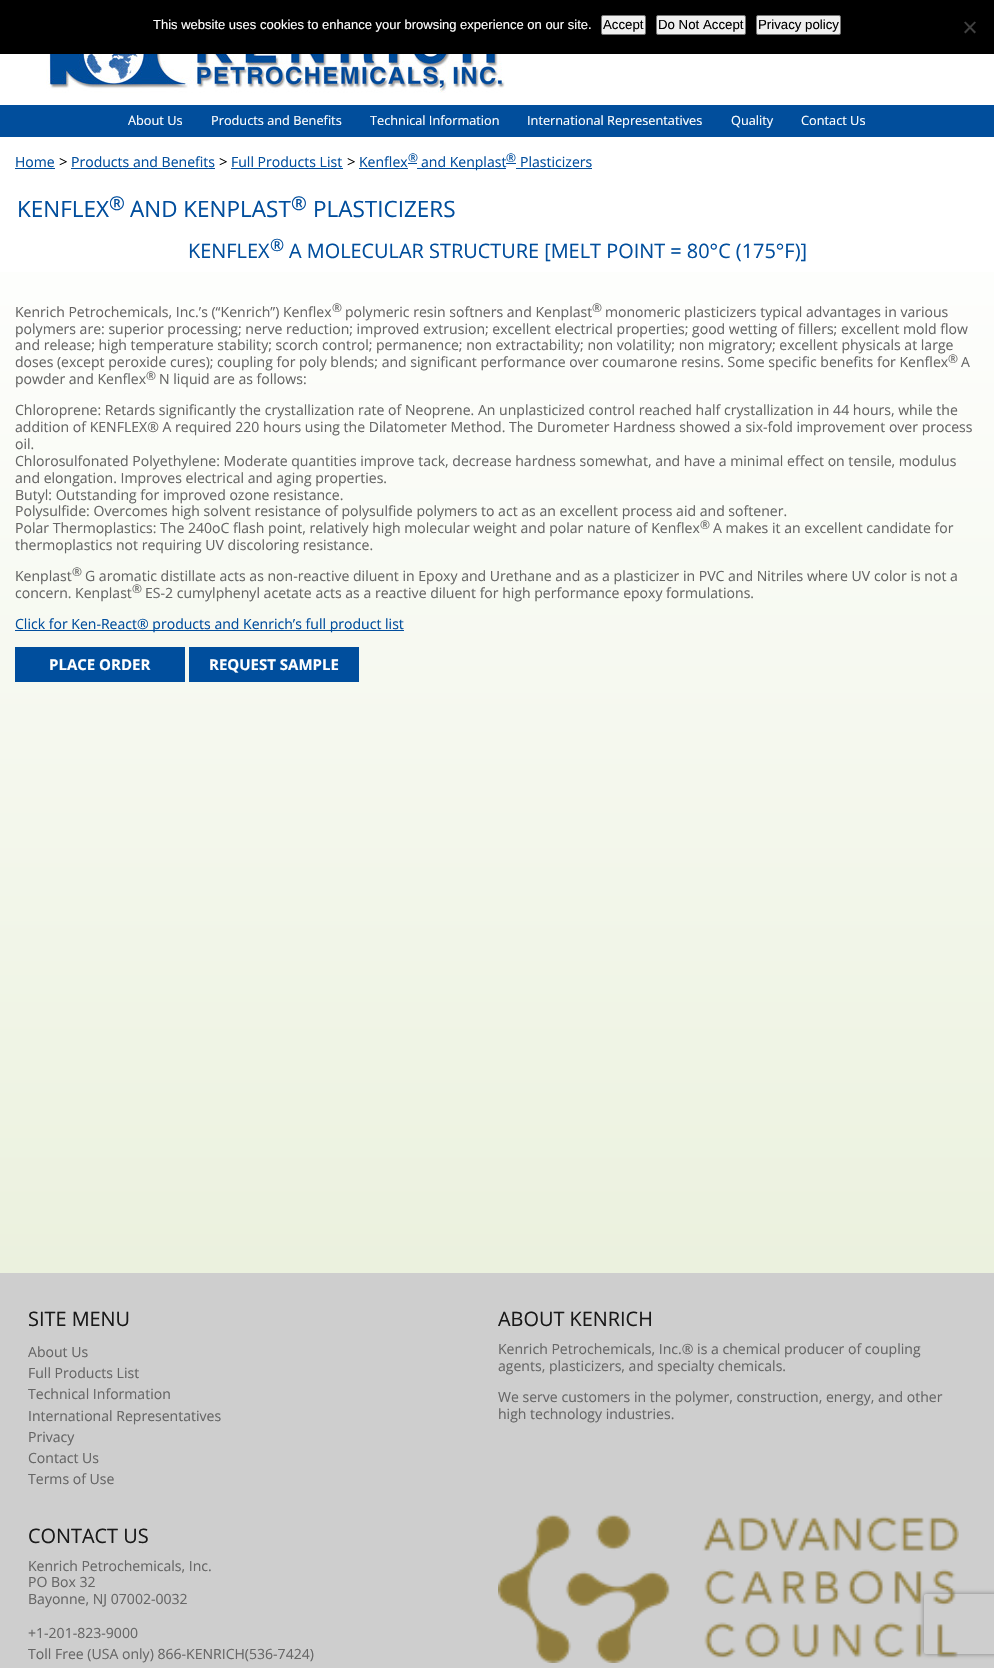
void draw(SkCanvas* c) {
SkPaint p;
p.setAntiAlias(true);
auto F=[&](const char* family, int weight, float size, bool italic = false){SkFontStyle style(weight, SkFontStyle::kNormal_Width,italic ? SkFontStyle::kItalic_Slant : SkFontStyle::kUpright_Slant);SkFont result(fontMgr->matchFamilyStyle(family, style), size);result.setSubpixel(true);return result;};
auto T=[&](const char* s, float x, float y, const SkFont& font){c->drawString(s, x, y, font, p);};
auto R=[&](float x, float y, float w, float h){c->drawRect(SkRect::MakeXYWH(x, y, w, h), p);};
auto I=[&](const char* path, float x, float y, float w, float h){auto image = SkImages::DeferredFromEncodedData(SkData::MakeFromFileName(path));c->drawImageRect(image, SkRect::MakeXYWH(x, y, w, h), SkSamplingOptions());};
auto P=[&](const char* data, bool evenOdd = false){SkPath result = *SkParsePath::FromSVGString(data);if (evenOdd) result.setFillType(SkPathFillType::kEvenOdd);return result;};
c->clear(0xffffffff);
p.setColor(0xffcecece);
R(0,1273,994,395);
p.setColor(0xff000000);
R(0,0,994,54);
auto f1 = F("Liberation Sans",400,13);
p.setColor(0xffffffff);
T("This website uses cookies to enhance your browsing experience on our site.",153,29,f1);
p.setColor(0xffefefef);
c->drawRoundRect(SkRect::MakeXYWH(601.5,15.5,44,19),1.5,1.5,p);
p.setStroke(true);
p.setStrokeWidth(1);
p.setColor(0xff767676);
c->drawRoundRect(SkRect::MakeXYWH(601.5,15.5,44,19),1.5,1.5,p);
auto f2 = F("Liberation Sans",400,13.25);
p.setStroke(false);
p.setColor(0xff000000);
T("Accept",603,29,f2);
p.setColor(0xffefefef);
c->drawRoundRect(SkRect::MakeXYWH(656.5,15.5,89,19),1.5,1.5,p);
p.setStroke(true);
p.setColor(0xff767676);
c->drawRoundRect(SkRect::MakeXYWH(656.5,15.5,89,19),1.5,1.5,p);
p.setStroke(false);
p.setColor(0xff000000);
T("Do Not Accept",658,29,f2);
p.setColor(0xffefefef);
c->drawRoundRect(SkRect::MakeXYWH(756.5,15.5,84,19),1.5,1.5,p);
p.setStroke(true);
p.setColor(0xff767676);
c->drawRoundRect(SkRect::MakeXYWH(756.5,15.5,84,19),1.5,1.5,p);
p.setStroke(false);
p.setColor(0xff000000);
T("Privacy policy",758,29,f2);
p.setColor(0xff404040);
c->drawPath(P("M974.5 21.5l1.5 1l-10.5 11l-1.5-1.5z"),p);
c->drawPath(P("M964 22.5l1.5-1l10.5 10.5l-1.5 1.5z"),p);
auto f3 = F("Open Sans",400,19.9);
p.setColor(0xff191919);
T("SITE MENU",28,1326,f3);
auto f4 = F("Open Sans",400,14.05);
p.setColor(0xff666666);
T("About Us",28,1357,f4);
T("Full Products List",28,1378,f4);
T("Technical Information",28,1399,f4);
T("International Representatives",28,1421,f4);
T("Privacy",28,1442,f4);
T("Contact Us",28,1463,f4);
T("Terms of Use",28,1484,f4);
p.setColor(0xff191919);
T("ABOUT KENRICH",498,1326,f3);
p.setColor(0xff666666);
T("Kenrich Petrochemicals, Inc.® is a chemical producer of coupling",498,1354,f4);
T("agents, plasticizers, and specialty chemicals.",498,1371,f4);
T("We serve customers in the polymer, construction, energy, and other",498,1402,f4);
T("high technology industries.",498,1419,f4);
p.setColor(0xff191919);
T("CONTACT US",28,1543,f3);
p.setColor(0xff666666);
T("Kenrich Petrochemicals, Inc.",28,1571,f4);
T("PO Box 32",28,1587,f4);
T("Bayonne, NJ 07002-0032",28,1604,f4);
T("+1-201-823-9000",28,1638,f4);
T("Toll Free (USA only) 866-KENRICH(536-7424)",28,1659,f4);
I("1.png",498,1514,461,149);
I("2.png",46,54,459,39);
p.setColor(0xff014e9c);
R(0,105,994,32);
auto f5 = F("Open Sans",400,12.75);
p.setColor(0xffffffff);
T("About Us",128,125,f5);
T("Products and Benefits",211,125,f5);
T("Technical Information",370,125,f5);
T("International Representatives",527,125,f5);
T("Quality",731,125,f5);
T("Contact Us",801,125,f5);
p.setColor(0xff014e9d);
T("Home",15,167,f4);
R(15,168,40,1);
auto f6 = F("Open Sans",400,15);
p.setColor(0xff000000);
T(">",59,167,f6);
p.setColor(0xff014e9d);
T("Products and Benefits",71,167,f4);
R(71,168,144,1);
p.setColor(0xff000000);
T(">",219,167,f6);
p.setColor(0xff014e9d);
T("Full Products List",231,167,f4);
R(231,168,112,1);
p.setColor(0xff000000);
T(">",347,167,f6);
p.setColor(0xff014e9d);
T("Kenflex",359,167,f4);
R(359,168,49,1);
R(408,163,9,1);
auto f7 = F("Open Sans",400,12);
T("®",408,162,f7);
R(417,168,89,1);
T("and Kenplast",421,167,f4);
R(506,163,10,1);
T("®",506,162,f7);
T("Plasticizers",520,167,f4);
R(516,168,76,1);
{
const SkColor colors[] = {0xffffffff,0xffebf1de};
const float stops[] = {0,1};
const SkPoint ends[] = {{497,190}, {497,1273}};
p.setShader(SkGradientShader::MakeLinear(ends, colors, stops, 2, SkTileMode::kClamp));
p.setAlpha(255);
}
R(0,272,994,1001);
auto f8 = F("Open Sans",400,22.5);
p.setShader(nullptr);
p.setColor(0xff014e9d);
T("KENFLEX",17,217,f8);
auto f9 = F("Open Sans",400,19);
T("®",109,210,f9);
T("AND KENPLAST",130,217,f8);
T("®",291,210,f9);
T("PLASTICIZERS",313,217,f8);
T("KENFLEX",188,258,f3);
auto f10 = F("Open Sans",400,17);
T("®",270,251,f10);
T("A MOLECULAR STRUCTURE [MELT POINT = 80°C (175°F)]",289,258,f3);
p.setColor(0xff666666);
T("Kenrich Petrochemicals, Inc.’s (“Kenrich”) Kenflex",15,317,f4);
T("®",332,312,f7);
T("polymeric resin softners and Kenplast",345,317,f4);
T("®",592,312,f7);
T("monomeric plasticizers typical advantages in various",605,317,f4);
T("polymers are: superior processing; nerve reduction; improved extrusion; excellent electrical properties; good wetting of fillers; excellent mold flow",15,334,f4);
T("and release; high temperature stability; scorch control; permanence; non extractability; non volatility; non migratory; excellent physicals at large",15,350,f4);
T("doses (except peroxide cures); coupling for poly blends; and significant performance over coumarone resins. Some specific benefits for Kenflex",15,367,f4);
T("®",948,363,f7);
T("A",961,367,f4);
T("powder and Kenflex",15,384,f4);
T("®",146,380,f7);
T("N liquid are as follows:",159,384,f4);
T("Chloroprene: Retards significantly the crystallization rate of Neoprene. An unplasticized control reached half crystallization in 44 hours, while the",15,415,f4);
T("addition of KENFLEX® A required 220 hours using the Dilatometer Method. The Durometer Hardness showed a six-fold improvement over process",15,432,f4);
T("oil.",15,449,f4);
T("Chlorosulfonated Polyethylene: Moderate quantities improve tack, decrease hardness somewhat, and have a minimal effect on tensile, modulus",15,466,f4);
T("and elongation. Improves electrical and aging properties.",15,483,f4);
T("Butyl: Outstanding for improved ozone resistance.",15,500,f4);
T("Polysulfide: Overcomes high solvent resistance of polysulfide polymers to act as an excellent process aid and softener.",15,516,f4);
T("Polar Thermoplastics: The 240oC flash point, relatively high molecular weight and polar nature of Kenflex",15,533,f4);
T("®",700,529,f7);
T("A makes it an excellent candidate for",713,533,f4);
T("thermoplastics not requiring UV discoloring resistance.",15,550,f4);
T("Kenplast",15,581,f4);
T("®",72,576,f7);
T("G aromatic distillate acts as non-reactive diluent in Epoxy and Urethane and as a plasticizer in PVC and Nitriles where UV color is not a",85,581,f4);
T("concern. Kenplast",15,598,f4);
T("®",132,593,f7);
T("ES-2 cumylphenyl acetate acts as a reactive diluent for high performance epoxy formulations.",145,598,f4);
p.setColor(0xff014e9d);
R(15,630,389,1);
T("Click for Ken-React® products and Kenrich’s full product list",15,629,f4);
p.setColor(0xff004e9d);
R(15,647,170,35);
auto f11 = F("Open Sans",700,15);
p.setColor(0xffffffff);
T("PLACE ORDER",49,670,f11);
p.setColor(0xff004e9d);
R(189,647,170,35);
p.setColor(0xffffffff);
T("REQUEST SAMPLE",209,670,f11);
c->save();
c->clipPath(P("M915 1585h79v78h-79zm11 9h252c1 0 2 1 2 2v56c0 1-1 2-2 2h-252c-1 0-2-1-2-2v-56c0-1 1-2 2-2z",true),true);
p.setColor(0xff808080);
p.setMaskFilter(SkMaskFilter::MakeBlur(kNormal_SkBlurStyle, 2.5));
c->drawRoundRect(SkRect::MakeXYWH(924,1594,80,60),2,2,p);
p.setMaskFilter(nullptr);
c->restore();
}
